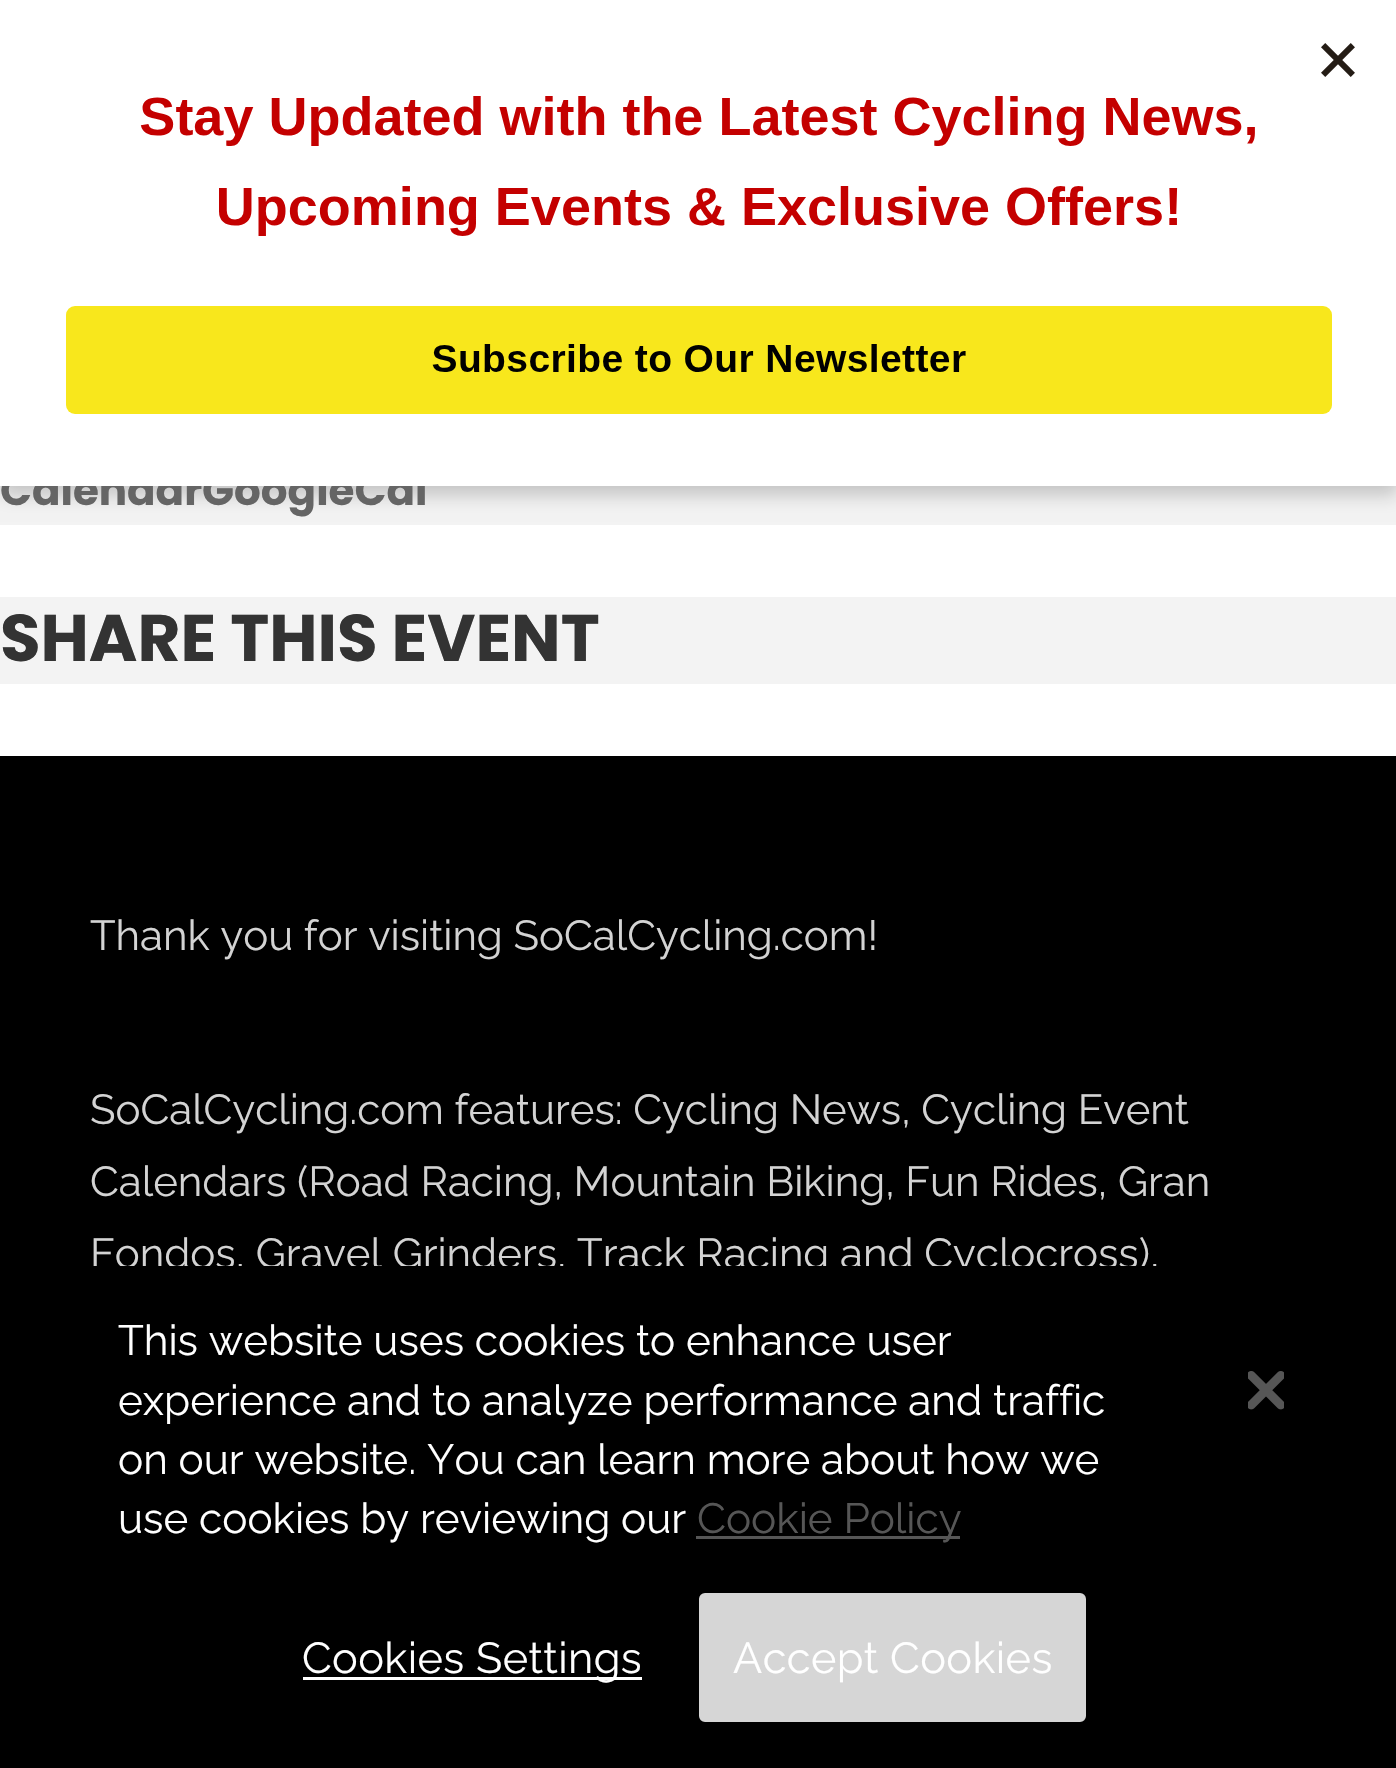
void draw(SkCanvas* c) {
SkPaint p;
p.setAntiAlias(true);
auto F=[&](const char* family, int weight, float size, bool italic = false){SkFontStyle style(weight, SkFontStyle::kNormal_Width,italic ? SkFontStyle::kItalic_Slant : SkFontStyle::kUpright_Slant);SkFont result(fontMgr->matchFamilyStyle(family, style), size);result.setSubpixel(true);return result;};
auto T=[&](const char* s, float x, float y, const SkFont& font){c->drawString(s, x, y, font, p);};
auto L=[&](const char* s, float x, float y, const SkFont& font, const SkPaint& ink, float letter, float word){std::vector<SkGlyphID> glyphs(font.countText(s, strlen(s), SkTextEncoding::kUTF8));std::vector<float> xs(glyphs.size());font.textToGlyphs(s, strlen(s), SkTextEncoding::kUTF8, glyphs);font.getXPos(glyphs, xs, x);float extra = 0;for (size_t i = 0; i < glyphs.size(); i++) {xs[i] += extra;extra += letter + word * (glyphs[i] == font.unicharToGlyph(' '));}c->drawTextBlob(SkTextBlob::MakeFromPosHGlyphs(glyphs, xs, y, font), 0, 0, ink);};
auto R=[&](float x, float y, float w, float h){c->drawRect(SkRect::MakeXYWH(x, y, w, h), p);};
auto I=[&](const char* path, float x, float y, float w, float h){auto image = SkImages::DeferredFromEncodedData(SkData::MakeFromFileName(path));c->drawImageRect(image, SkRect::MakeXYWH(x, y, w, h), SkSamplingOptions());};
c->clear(0xffffffff);
p.setColor(0xfff3f3f3);
R(0,486,1396,39);
p.setColor(0x33000000);
p.setMaskFilter(SkMaskFilter::MakeBlur(kNormal_SkBlurStyle, 9));
c->drawRect(SkRect::MakeXYWH(0,9,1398,486),p);
p.setMaskFilter(nullptr);
auto f1 = F("Poppins",700,42);
p.setColor(0xff656565);
T("CalendarGoogleCal",0,505,f1);
p.setColor(0xffffffff);
R(0,0,1396,486);
I("1.png",66,43,1289,371);
p.setColor(0xfff3f3f3);
R(0,597,1396,87);
auto f2 = F("Poppins",700,66);
p.setColor(0xff333333);
T("SHARE THIS EVENT",0,661,f2);
p.setColor(0xff000000);
R(0,756,1396,510);
auto f3 = F("Raleway",400,42);
p.setColor(0xffd3d3d3);
T("Thank you for visiting SoCalCycling.com!",90,950,f3);
T("SoCalCycling.com features: Cycling News, Cycling Event",90,1124,f3);
T("Calendars (Road Racing, Mountain Biking, Fun Rides, Gran",90,1196,f3);
T("Fondos, Gravel Grinders, Track Racing and Cyclocross),",90,1268,f3);
p.setColor(0xff000000);
R(0,1266,1396,502);
auto f4 = F("Raleway",400,42.25);
p.setColor(0xffffffff);
T("This website uses cookies to enhance user",118,1355,f4);
T("experience and to analyze performance and traffic",118,1415,f4);
T("on our website. You can learn more about how we",118,1474,f4);
T("use cookies by reviewing our",118,1533,f4);
p.setColor(0xff565656);
R(696,1536,264,3);
T("Cookie Policy",697,1533,f4);
I("2.png",1248,1371,36,39);
p.setColor(0xffffffff);
R(303,1677,339,3);
auto f5 = F("Raleway",400,43.25);
L("Cookies Settings",302,1673,f5,p,.4,0);
p.setColor(0xffd6d6d6);
c->drawRoundRect(SkRect::MakeXYWH(700.5,1594.5,384,126),4.5,4.5,p);
p.setStroke(true);
p.setStrokeWidth(3);
c->drawRoundRect(SkRect::MakeXYWH(700.5,1594.5,384,126),4.5,4.5,p);
p.setStroke(false);
p.setColor(0xffffffff);
L("Accept Cookies",733,1673,f5,p,.4,0);
}
